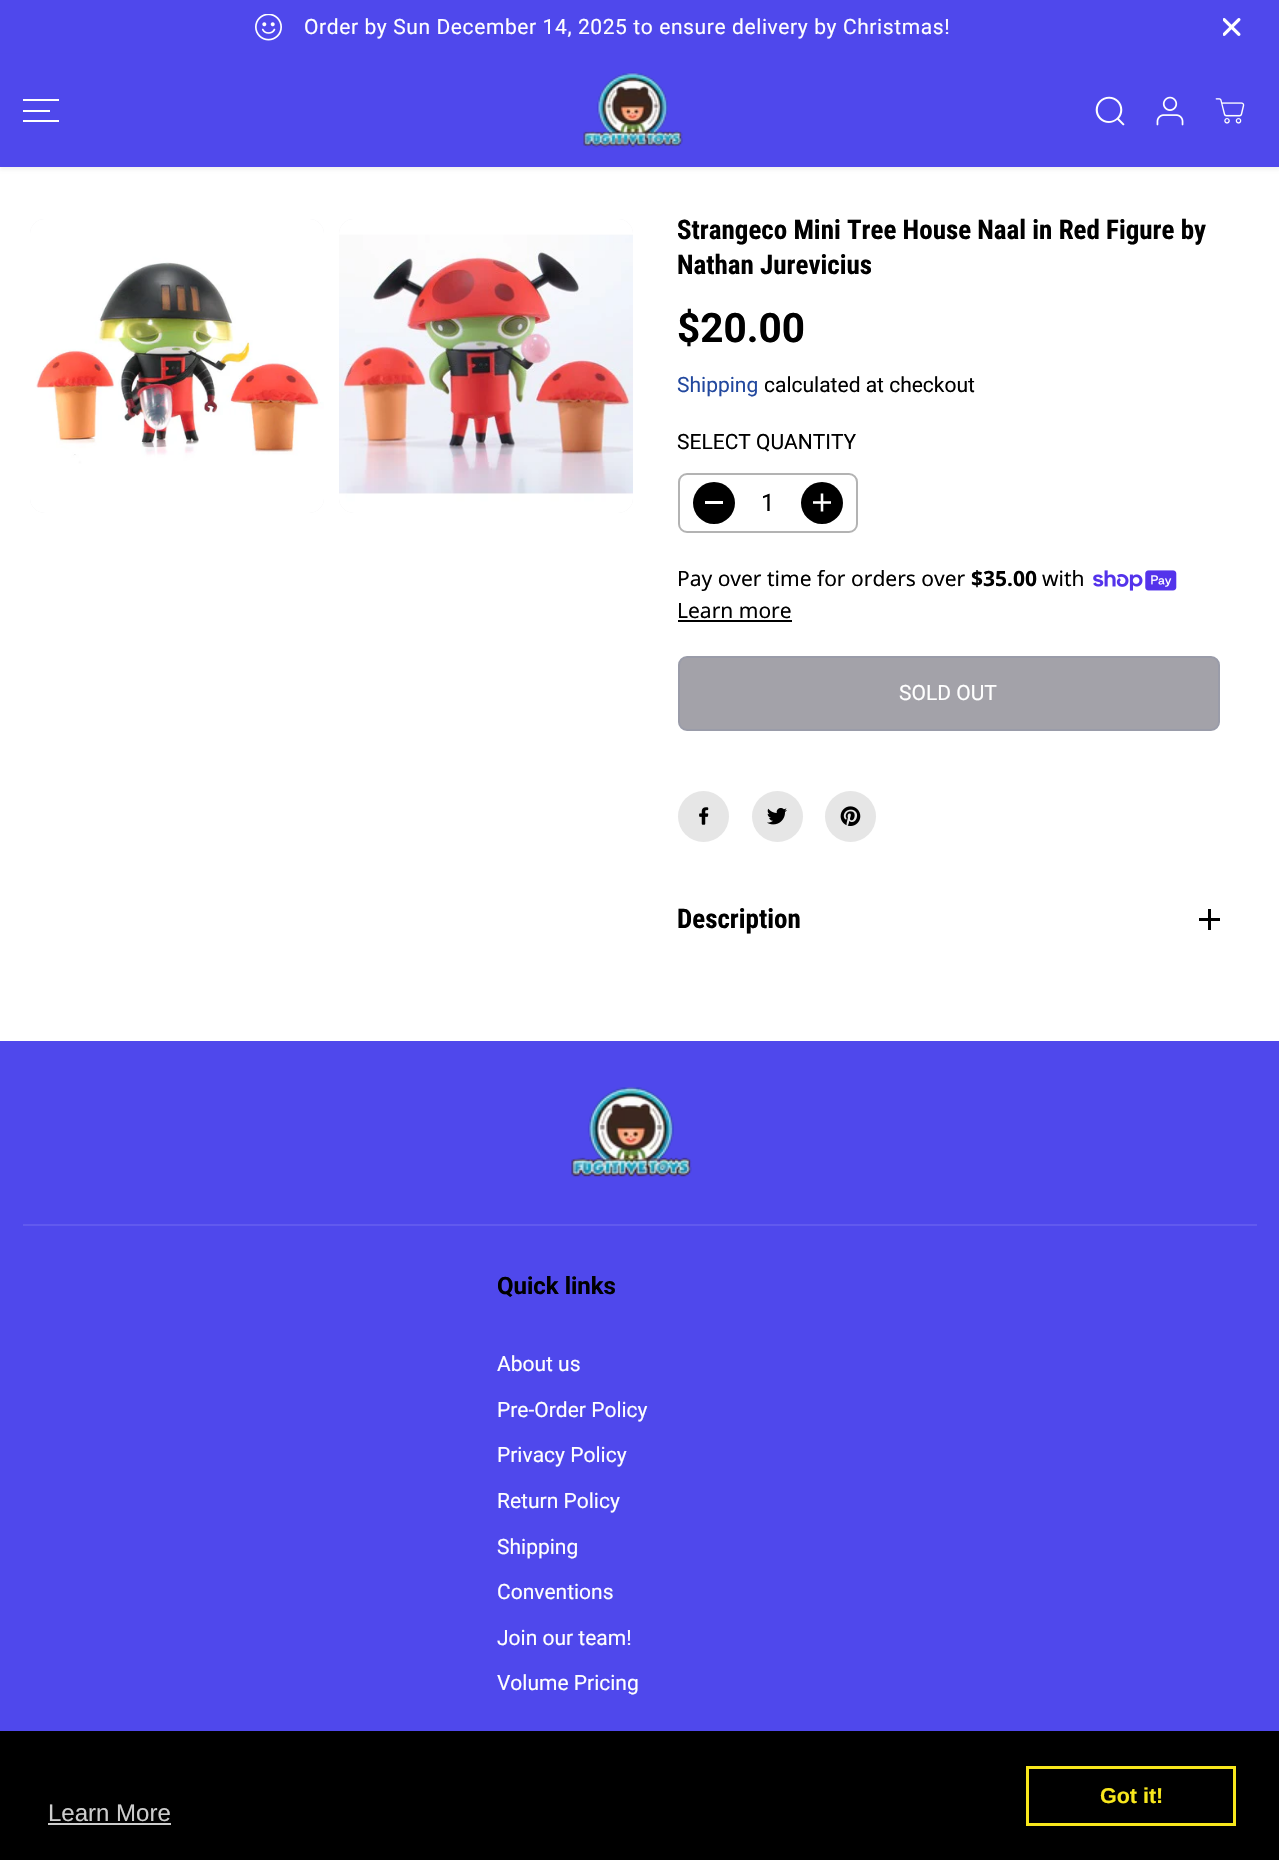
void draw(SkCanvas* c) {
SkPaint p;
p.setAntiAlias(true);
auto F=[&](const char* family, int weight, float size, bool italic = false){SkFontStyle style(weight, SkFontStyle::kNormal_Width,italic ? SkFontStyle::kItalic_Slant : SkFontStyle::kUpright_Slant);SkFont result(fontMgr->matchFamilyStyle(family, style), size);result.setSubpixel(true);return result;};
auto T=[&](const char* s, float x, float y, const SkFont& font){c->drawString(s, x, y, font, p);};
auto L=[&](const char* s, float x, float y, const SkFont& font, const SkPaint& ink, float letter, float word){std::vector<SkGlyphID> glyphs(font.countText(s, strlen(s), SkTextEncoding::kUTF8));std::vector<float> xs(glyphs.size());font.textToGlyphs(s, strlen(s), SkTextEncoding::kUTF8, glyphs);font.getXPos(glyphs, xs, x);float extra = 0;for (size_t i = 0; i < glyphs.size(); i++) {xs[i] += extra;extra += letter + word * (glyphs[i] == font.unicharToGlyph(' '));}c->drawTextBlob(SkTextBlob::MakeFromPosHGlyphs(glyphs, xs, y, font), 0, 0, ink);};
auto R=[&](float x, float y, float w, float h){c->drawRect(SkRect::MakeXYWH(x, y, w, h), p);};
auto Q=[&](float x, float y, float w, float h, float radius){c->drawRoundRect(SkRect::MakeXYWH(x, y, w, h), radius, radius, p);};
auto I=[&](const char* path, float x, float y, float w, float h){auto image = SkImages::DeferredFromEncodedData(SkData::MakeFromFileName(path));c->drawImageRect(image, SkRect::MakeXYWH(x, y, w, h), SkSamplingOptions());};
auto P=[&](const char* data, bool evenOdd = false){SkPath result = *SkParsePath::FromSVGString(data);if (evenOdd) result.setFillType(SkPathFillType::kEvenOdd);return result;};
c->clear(0xffffffff);
p.setColor(0xff4f48ec);
R(0,0,1279,167);
I("1.png",255,14,27,27);
auto f1 = F("Roboto",400,21);
p.setColor(0xffffffff);
L("Order by Sun December 14, 2025 to ensure delivery by Christmas!",304,34,f1,p,.6,0);
I("2.png",1223,18,18,18);
c->save();
c->clipPath(P("M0 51h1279v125h-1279zm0 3h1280v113h-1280z",true),true);
p.setColor(0x0d000000);
p.setMaskFilter(SkMaskFilter::MakeBlur(kNormal_SkBlurStyle, 1.5));
c->drawRect(SkRect::MakeXYWH(0,57,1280,113),p);
p.setMaskFilter(nullptr);
c->restore();
p.setColor(0xffffffff);
R(23,110,27,2);
R(23,99,36,2);
R(23,120,36,2);
I("3.png",583,72,100,76);
I("4.png",1095,96,30,30);
I("5.png",1156,96,28,30);
I("6.png",1215,98,30,26);
p.setColor(0xffefeef1);
Q(30,219,294,294,15);
I("7.png",30,219,294,294);
Q(339,219,294,294,15);
I("8.png",339,219,294,294);
auto f2 = F("Roboto Condensed",700,27);
p.setColor(0xff000000);
T("Strangeco Mini Tree House Naal in Red Figure by",677,239,f2);
T("Nathan Jurevicius",677,274,f2);
auto f3 = F("Roboto",700,40.5);
T("$20.00",677,342,f3);
p.setColor(0xff22489e);
T("Shipping",677,392,f1);
p.setColor(0xff000000);
T("calculated at checkout",764,392,f1);
T("SELECT QUANTITY",677,449,f1);
p.setStroke(true);
p.setStrokeWidth(2);
p.setColor(0xffb3b3b3);
c->drawRoundRect(SkRect::MakeXYWH(679,474,178,58),8,8,p);
p.setStroke(false);
p.setColor(0xff000000);
c->drawCircle(714,503,21,p);
p.setColor(0xffffffff);
R(705,501,18,3);
auto f4 = F("Roboto",400,24);
p.setColor(0xff000000);
T("1",761,511,f4);
c->drawCircle(822,503,21,p);
I("9.png",813,493,18,19);
auto f5 = F("Noto Sans",400,21);
T("Pay over time for orders over",677,586,f5);
auto f6 = F("Noto Sans",700,21);
T("$35.00",971,586,f6);
T("with",1042,586,f5);
I("10.png",1093,570,84,21);
T("Learn more",677,618,f5);
R(678,620,114,2);
p.setColor(0xffa3a2a9);
c->drawRoundRect(SkRect::MakeXYWH(679,657,540,73),8,8,p);
p.setStroke(true);
p.setColor(0xff9a9ca9);
c->drawRoundRect(SkRect::MakeXYWH(679,657,540,73),8,8,p);
p.setStroke(false);
p.setColor(0xffffffff);
T("SOLD OUT",899,700,f1);
p.setColor(0xffe6e6e6);
c->drawCircle(703.5,816.5,25.5,p);
I("11.png",699,807,10,18);
c->drawCircle(777.5,816.5,25.5,p);
I("12.png",767,808,20,17);
c->drawCircle(850.5,816.5,25.5,p);
I("13.png",840,806,21,20);
p.setColor(0xff000000);
T("Description",677,928,f2);
R(1208,909,3,21);
R(1199,918,21,3);
p.setColor(0xff4f48ec);
R(0,1041,1279,690);
p.setColor(0xff615aee);
R(23,1224,1234,2);
I("14.png",571,1087,121,90);
auto f7 = F("Roboto",700,24);
p.setColor(0xff000000);
T("Quick links",497,1294,f7);
p.setColor(0xffffffff);
T("About us",497,1371,f1);
T("Pre-Order Policy",497,1417,f1);
T("Privacy Policy",497,1462,f1);
T("Return Policy",497,1508,f1);
T("Shipping",497,1554,f1);
T("Conventions",497,1599,f1);
T("Join our team!",497,1645,f1);
T("Volume Pricing",497,1690,f1);
p.setColor(0xff000000);
R(0,1731,1279,129);
p.setStroke(true);
p.setStrokeWidth(3);
p.setColor(0xfff8e71c);
c->drawRect(SkRect::MakeXYWH(1027.5,1767.5,207,57),p);
auto f8 = F("Liberation Sans",700,21.5);
p.setStroke(false);
T("Got it!",1100,1803,f8);
auto f9 = F("Liberation Sans",400,24);
p.setColor(0xffcccccc);
T("Learn More",48,1821,f9);
R(48,1823,123,2);
}
